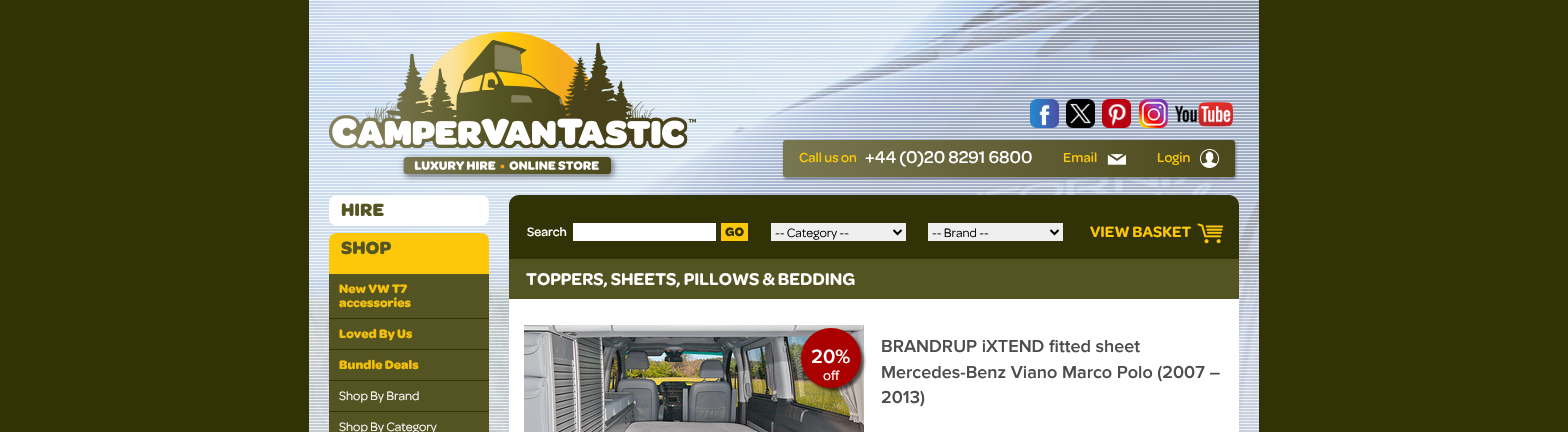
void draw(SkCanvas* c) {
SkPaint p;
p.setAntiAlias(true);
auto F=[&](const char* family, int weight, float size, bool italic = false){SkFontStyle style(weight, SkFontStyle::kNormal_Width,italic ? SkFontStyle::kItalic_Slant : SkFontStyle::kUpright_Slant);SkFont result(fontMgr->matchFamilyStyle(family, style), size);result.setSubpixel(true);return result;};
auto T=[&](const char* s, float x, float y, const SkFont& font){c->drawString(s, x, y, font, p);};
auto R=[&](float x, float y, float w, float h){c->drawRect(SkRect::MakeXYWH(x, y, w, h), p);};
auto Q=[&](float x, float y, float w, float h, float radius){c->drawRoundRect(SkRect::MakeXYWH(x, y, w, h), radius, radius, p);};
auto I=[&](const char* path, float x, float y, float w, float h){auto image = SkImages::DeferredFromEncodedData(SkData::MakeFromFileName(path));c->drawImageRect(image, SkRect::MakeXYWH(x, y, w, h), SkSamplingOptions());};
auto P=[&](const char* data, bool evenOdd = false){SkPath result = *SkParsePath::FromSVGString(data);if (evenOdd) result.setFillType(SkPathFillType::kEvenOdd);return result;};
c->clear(0xff313307);
I("1.png",309,0,950,432);
I("2.png",309,0,950,430);
I("3.png",329,32,367,150);
I("4.png",1030,99,29,29);
I("5.png",1066,99,29,29);
I("6.png",1102,99,29,29);
I("7.png",1139,99,29,29);
I("8.png",1175,102,58,25);
p.setColor(0x66000000);
p.setMaskFilter(SkMaskFilter::MakeBlur(kNormal_SkBlurStyle, 1.5));
c->drawRoundRect(SkRect::MakeXYWH(784,142,452,37),3,3,p);
p.setMaskFilter(nullptr);
{
const SkColor colors[] = {0xff797750,0xff4c481d};
const float stops[] = {0,1};
const SkPoint ends[] = {{783,159}, {1235,159}};
p.setShader(SkGradientShader::MakeLinear(ends, colors, stops, 2, SkTileMode::kClamp));
p.setAlpha(255);
}
Q(783,140,452,37,3);
auto f1 = F("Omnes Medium",500,14);
p.setShader(nullptr);
p.setColor(0xfffcc708);
T("Call us on",799,162,f1);
auto f2 = F("Omnes Medium",500,18);
p.setColor(0xffffffff);
T("+44 (0)20 8291 6800",865,163,f2);
p.setColor(0xfffcc708);
T("Email",1063,162,f1);
I("9.png",1107,154,19,11);
T("Login",1157,162,f1);
I("10.png",1200,149,19,19);
p.setColor(0xffffffff);
Q(329,195,160,31,8);
auto f3 = F("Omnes",700,19);
p.setColor(0xff555524);
T("HIRE",341,216,f3);
p.setColor(0xfffdc809);
Q(329,233,160,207,8);
p.setColor(0xff555524);
T("SHOP",341,254,f3);
p.setColor(0xff545423);
R(329,274,160,158);
p.setColor(0xff313307);
R(329,318,160,1);
auto f4 = F("Omnes",700,13);
p.setColor(0xfff3c009);
T("New VW T7",339,293,f4);
T("accessories",339,307,f4);
p.setColor(0xff313307);
R(329,349,160,1);
p.setColor(0xfff3c009);
T("Loved By Us",339,338,f4);
p.setColor(0xff313307);
R(329,380,160,1);
p.setColor(0xfff3c009);
T("Bundle Deals",339,369,f4);
p.setColor(0xff313307);
R(329,411,160,1);
auto f5 = F("Omnes",400,13);
p.setColor(0xffffffff);
T("Shop By Brand",339,400,f5);
T("Shop By Category",339,431,f5);
c->drawPath(P("M519 195h710c5.5 0 10 4.5 10 10v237h-730v-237c0-5.5 4.5-10 10-10z"),p);
p.setColor(0xff313307);
c->drawPath(P("M519 195h710c5.5 0 10 4.5 10 10v54h-730v-54c0-5.5 4.5-10 10-10z"),p);
auto f6 = F("Omnes Medium",500,13);
p.setColor(0xffffffff);
T("Search",527,236,f6);
R(573,223,143,18);
p.setColor(0xfffdc809);
R(721,223,27,18);
p.setColor(0xff313307);
T("GO",725,236,f4);
p.setColor(0xffefefef);
R(771,223,135,18);
p.setStroke(true);
p.setStrokeWidth(2);
p.setColor(0xff000000);
c->drawPath(P("M893.5 230l4 4l4-4"),p);
p.setStroke(false);
T("-- Category --",775,237,f5);
p.setColor(0xffefefef);
R(928,223,135,18);
p.setStroke(true);
p.setColor(0xff000000);
c->drawPath(P("M1050.5 230l4 4l4-4"),p);
p.setStroke(false);
T("-- Brand --",932,237,f5);
auto f7 = F("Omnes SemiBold",600,16);
p.setColor(0xfffcc708);
T("VIEW BASKET",1090,237,f7);
I("11.png",1197,223,27,21);
p.setColor(0xff545423);
R(509,259,730,40);
auto f8 = F("Omnes SemiBold",600,18);
p.setColor(0xffffffff);
T("TOPPERS, SHEETS, PILLOWS & BEDDING",526,285,f8);
I("12.png",524,325,340,107);
p.setColor(0x99000000);
p.setMaskFilter(SkMaskFilter::MakeBlur(kNormal_SkBlurStyle, 1.5));
c->drawRoundRect(SkRect::MakeXYWH(804,331,60,60),30,30,p);
p.setMaskFilter(nullptr);
p.setColor(0xffaa0000);
c->drawCircle(831,358,30,p);
auto f9 = F("Proxima Nova",600,20);
p.setColor(0xffffffff);
T("20%",811,363,f9);
auto f10 = F("Proxima Nova",400,14);
T("off",823,380,f10);
auto f11 = F("Proxima Nova",600,18);
p.setColor(0xff4d4d4d);
T("BRANDRUP iXTEND fitted sheet",881,352,f11);
T("Mercedes-Benz Viano Marco Polo (2007 –",881,378,f11);
T("2013)",881,403,f11);
}
